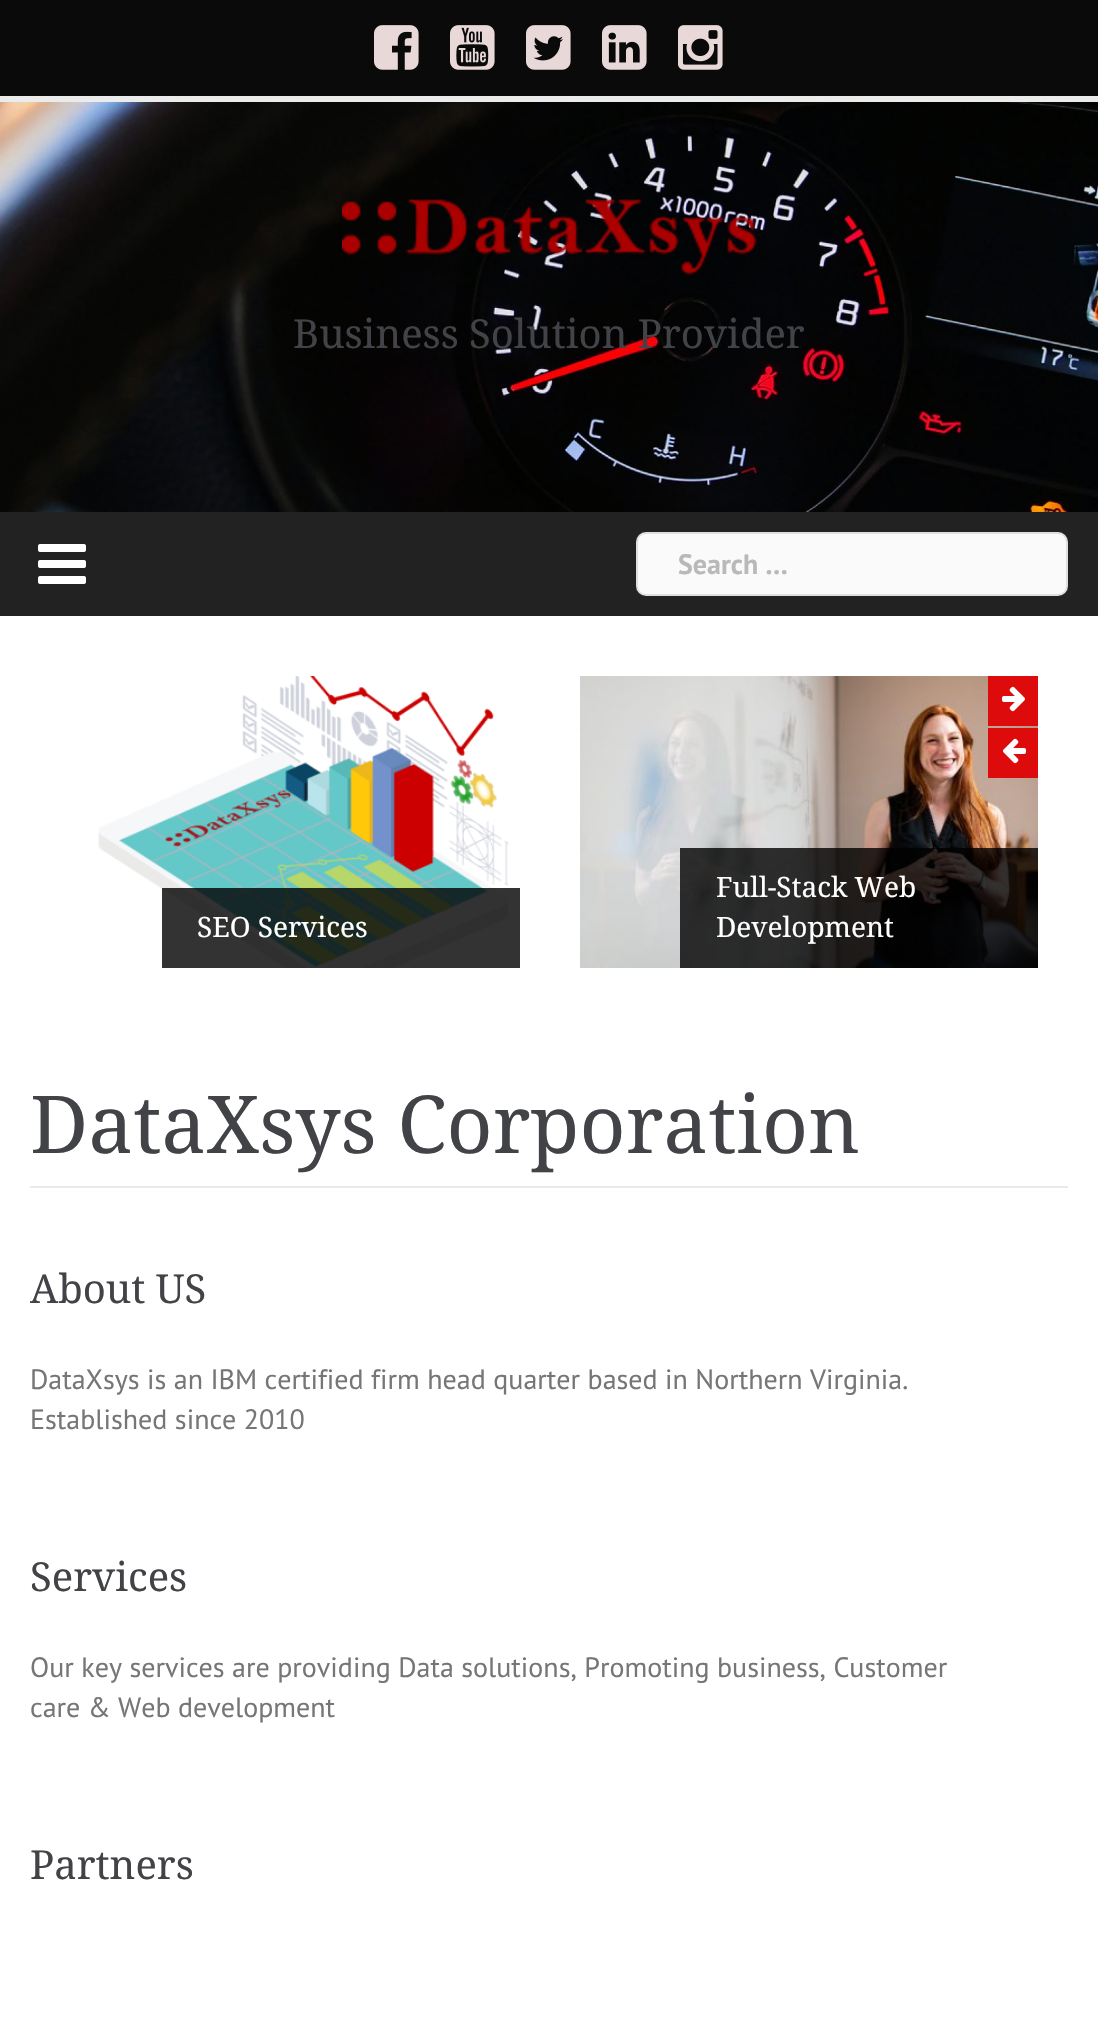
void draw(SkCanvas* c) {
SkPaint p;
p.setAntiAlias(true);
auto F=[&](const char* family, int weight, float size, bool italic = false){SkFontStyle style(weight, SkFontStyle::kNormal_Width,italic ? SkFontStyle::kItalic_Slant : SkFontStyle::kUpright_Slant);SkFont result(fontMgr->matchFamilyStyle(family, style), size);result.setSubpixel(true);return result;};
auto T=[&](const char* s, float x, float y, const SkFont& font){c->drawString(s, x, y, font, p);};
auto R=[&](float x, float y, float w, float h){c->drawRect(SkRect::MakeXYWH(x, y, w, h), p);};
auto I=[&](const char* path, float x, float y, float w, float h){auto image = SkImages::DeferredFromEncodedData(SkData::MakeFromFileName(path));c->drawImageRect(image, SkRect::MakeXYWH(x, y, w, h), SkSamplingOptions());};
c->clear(0xffffffff);
p.setColor(0xff0a0a0a);
R(0,0,1098,96);
p.setColor(0xffebebeb);
R(0,96,1098,6);
I("1.png",374,25,45,45);
I("2.png",450,25,45,45);
I("3.png",526,25,45,45);
I("4.png",602,25,45,45);
I("5.png",678,25,45,45);
I("6.png",0,102,1098,410);
I("7.png",342,198,415,77);
auto f1 = F("Droid Serif",400,40);
p.setColor(0xff424347);
T("Business Solution Provider",293,348,f1);
p.setColor(0xff222222);
R(0,512,1098,104);
I("8.png",38,544,48,40);
p.setColor(0xfffafafa);
c->drawRoundRect(SkRect::MakeXYWH(637,533,430,62),9,9,p);
p.setStroke(true);
p.setStrokeWidth(2);
p.setColor(0xffdfdfdf);
c->drawRoundRect(SkRect::MakeXYWH(637,533,430,62),9,9,p);
auto f2 = F("PT Sans",700,28);
p.setStroke(false);
p.setColor(0xffb9b9b9);
T("Search …",678,574,f2);
I("12.png",580,676,458,292);
p.setColor(0xffdd0b0b);
R(988,676,50,50);
I("9.png",1002,686,23,26);
R(988,728,50,50);
I("10.png",1003,738,23,26);
I("11.png",98,676,411,292);
p.setColor(0xcc000000);
R(162,888,358,80);
auto f3 = F("Droid Serif",400,28);
p.setColor(0xffffffff);
T("SEO Services",197,937,f3);
p.setColor(0xcc000000);
R(680,848,358,120);
p.setColor(0xffffffff);
T("Full-Stack Web",716,897,f3);
T("Development",716,937,f3);
p.setColor(0xffeaeaea);
R(30,1186,1038,2);
auto f4 = F("Droid Serif",400,80);
p.setColor(0xff424347);
T("DataXsys Corporation",30,1153,f4);
T("About US",30,1303,f1);
auto f5 = F("PT Sans",400,28);
p.setColor(0xff767676);
T("DataXsys is an IBM certified firm head quarter based in Northern Virginia.",30,1389,f5);
T("Established since 2010",30,1429,f5);
p.setColor(0xff424347);
T("Services",30,1591,f1);
p.setColor(0xff767676);
T("Our key services are providing Data solutions, Promoting business, Customer",30,1677,f5);
T("care & Web development",30,1717,f5);
p.setColor(0xff424347);
T("Partners",30,1879,f1);
}
